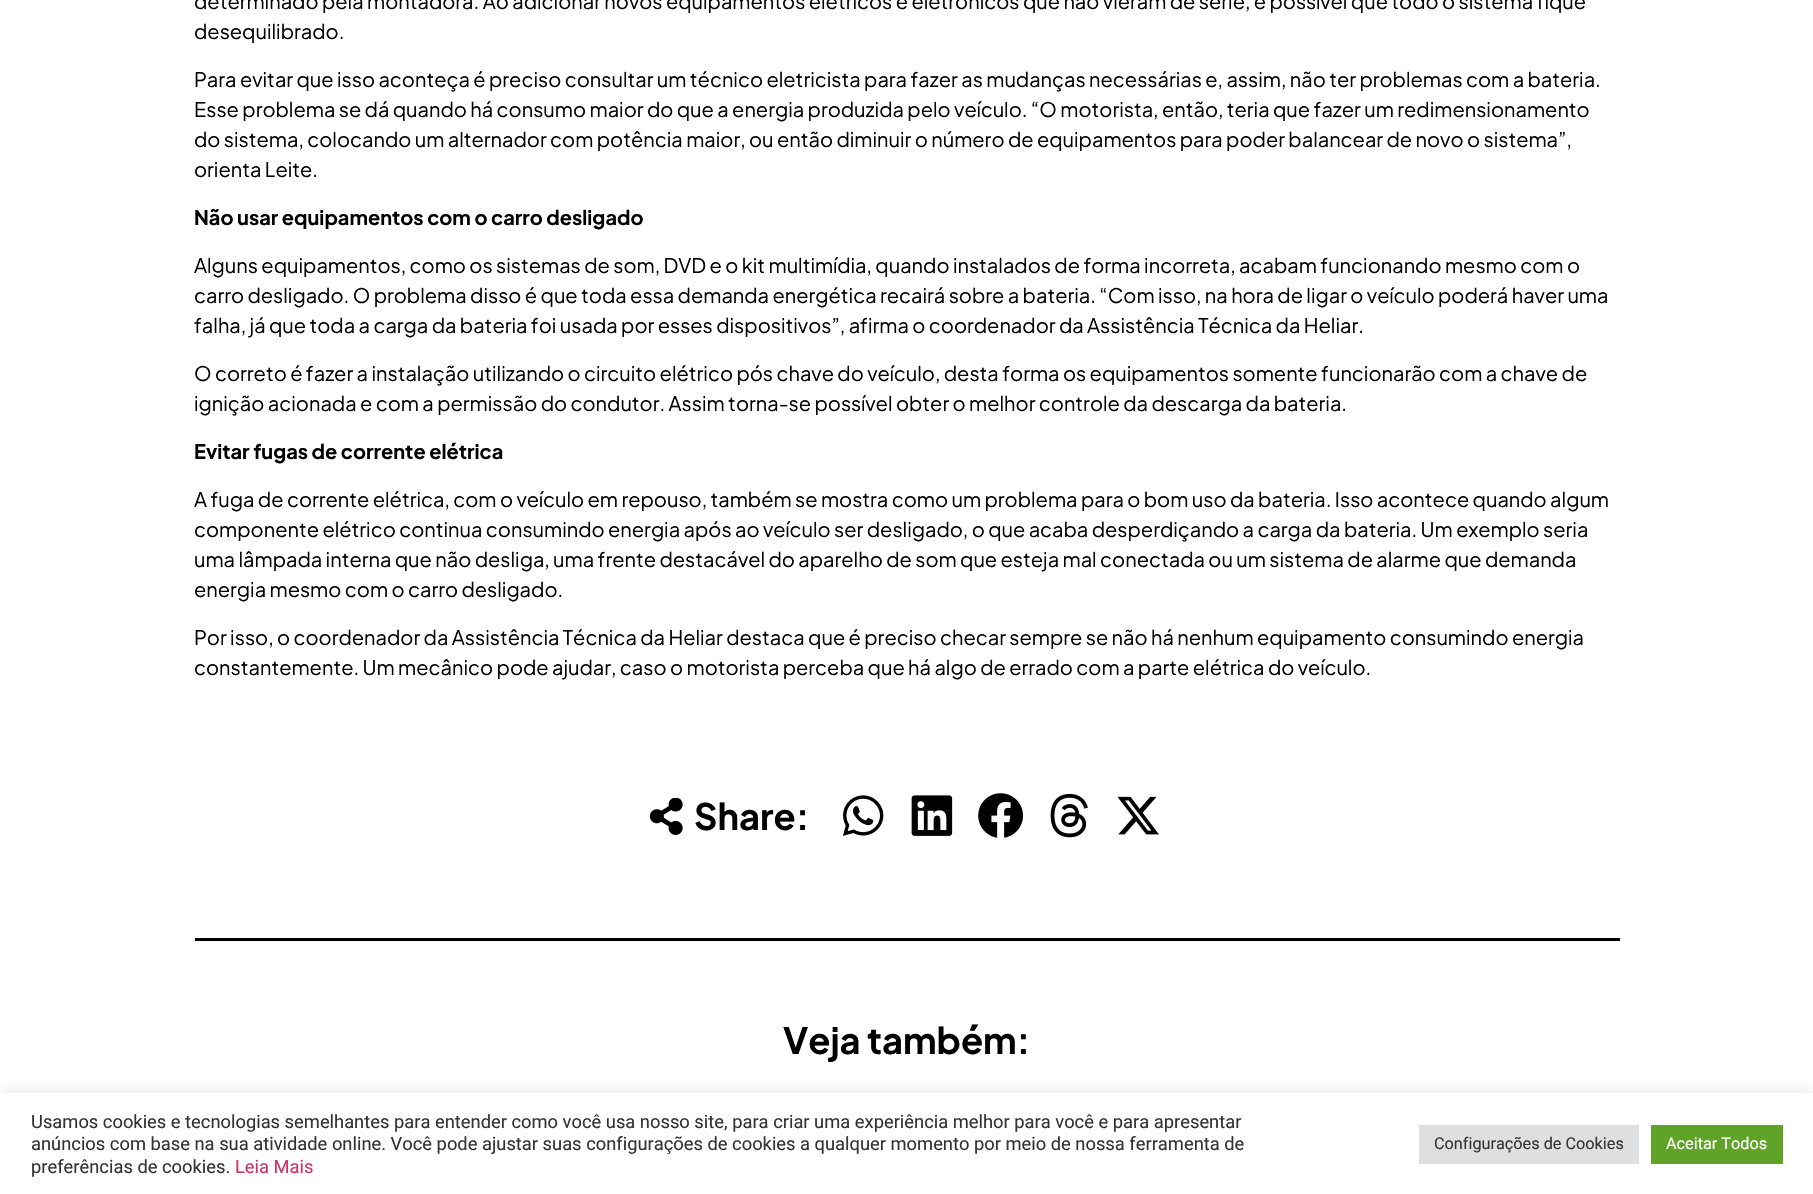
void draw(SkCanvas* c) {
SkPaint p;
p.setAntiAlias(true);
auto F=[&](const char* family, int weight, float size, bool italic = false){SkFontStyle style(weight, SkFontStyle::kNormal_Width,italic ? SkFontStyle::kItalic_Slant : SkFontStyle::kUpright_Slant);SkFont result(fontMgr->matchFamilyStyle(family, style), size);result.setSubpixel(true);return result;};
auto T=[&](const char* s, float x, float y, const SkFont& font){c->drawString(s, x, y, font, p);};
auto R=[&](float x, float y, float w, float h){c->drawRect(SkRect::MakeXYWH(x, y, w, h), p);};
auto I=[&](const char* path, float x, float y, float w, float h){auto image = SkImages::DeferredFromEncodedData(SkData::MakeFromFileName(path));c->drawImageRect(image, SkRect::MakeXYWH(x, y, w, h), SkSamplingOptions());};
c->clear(0xffffffff);
auto f1 = F("Plus Jakarta Sans",400,20);
p.setColor(0xff000000);
T("determinado pela montadora. Ao adicionar novos equipamentos elétricos e eletrônicos que não vieram de série, é possível que todo o sistema fique",194,9,f1);
T("desequilibrado.",194,39,f1);
T("Para evitar que isso aconteça é preciso consultar um técnico eletricista para fazer as mudanças necessárias e, assim, não ter problemas com a bateria.",194,87,f1);
T("Esse problema se dá quando há consumo maior do que a energia produzida pelo veículo. “O motorista, então, teria que fazer um redimensionamento",194,117,f1);
T("do sistema, colocando um alternador com potência maior, ou então diminuir o número de equipamentos para poder balancear de novo o sistema”,",194,147,f1);
T("orienta Leite.",194,177,f1);
auto f2 = F("Plus Jakarta Sans",700,20);
T("Não usar equipamentos com o carro desligado",194,225,f2);
T("Alguns equipamentos, como os sistemas de som, DVD e o kit multimídia, quando instalados de forma incorreta, acabam funcionando mesmo com o",194,273,f1);
T("carro desligado. O problema disso é que toda essa demanda energética recairá sobre a bateria. “Com isso, na hora de ligar o veículo poderá haver uma",194,303,f1);
T("falha, já que toda a carga da bateria foi usada por esses dispositivos”, afirma o coordenador da Assistência Técnica da Heliar.",194,333,f1);
T("O correto é fazer a instalação utilizando o circuito elétrico pós chave do veículo, desta forma os equipamentos somente funcionarão com a chave de",194,381,f1);
T("ignição acionada e com a permissão do condutor. Assim torna-se possível obter o melhor controle da descarga da bateria.",194,411,f1);
T("Evitar fugas de corrente elétrica",194,459,f2);
T("A fuga de corrente elétrica, com o veículo em repouso, também se mostra como um problema para o bom uso da bateria. Isso acontece quando algum",194,507,f1);
T("componente elétrico continua consumindo energia após ao veículo ser desligado, o que acaba desperdiçando a carga da bateria. Um exemplo seria",194,537,f1);
T("uma lâmpada interna que não desliga, uma frente destacável do aparelho de som que esteja mal conectada ou um sistema de alarme que demanda",194,567,f1);
T("energia mesmo com o carro desligado.",194,597,f1);
T("Por isso, o coordenador da Assistência Técnica da Heliar destaca que é preciso checar sempre se não há nenhum equipamento consumindo energia",194,645,f1);
T("constantemente. Um mecânico pode ajudar, caso o motorista perceba que há algo de errado com a parte elétrica do veículo.",194,675,f1);
I("1.png",649,798,34,37);
auto f3 = F("Plus Jakarta Sans",700,36.25);
T("Share:",694,830,f3);
I("2.png",842,795,42,41);
I("3.png",911,795,42,41);
I("4.png",978,793,45,45);
I("5.png",1050,793,38,45);
I("6.png",1117,796,42,39);
R(195,938,1425,3);
T("Veja também:",783,1054,f3);
p.setColor(0x4dacabab);
p.setMaskFilter(SkMaskFilter::MakeBlur(kNormal_SkBlurStyle, 6));
c->drawRect(SkRect::MakeXYWH(0,1091,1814,103),p);
p.setMaskFilter(nullptr);
p.setColor(0xffffffff);
R(0,1093,1813,101);
auto f4 = F("Roboto",400,18.33);
p.setColor(0xff333333);
T("Usamos cookies e tecnologias semelhantes para entender como você usa nosso site, para criar uma experiência melhor para você e para apresentar",31,1128,f4);
T("anúncios com base na sua atividade online. Você pode ajustar suas configurações de cookies a qualquer momento por meio de nossa ferramenta de",31,1150,f4);
T("preferências de cookies.",31,1173,f4);
p.setColor(0xffcc3366);
T("Leia Mais",235,1173,f4);
p.setColor(0xffdedfe0);
R(1419,1125,220,39);
auto f5 = F("Roboto",400,16.25);
p.setColor(0xff333333);
T("Configurações de Cookies",1434,1149,f5);
p.setColor(0xff61a229);
R(1651,1125,132,39);
p.setColor(0xffffffff);
T("Aceitar Todos",1666,1149,f5);
}
